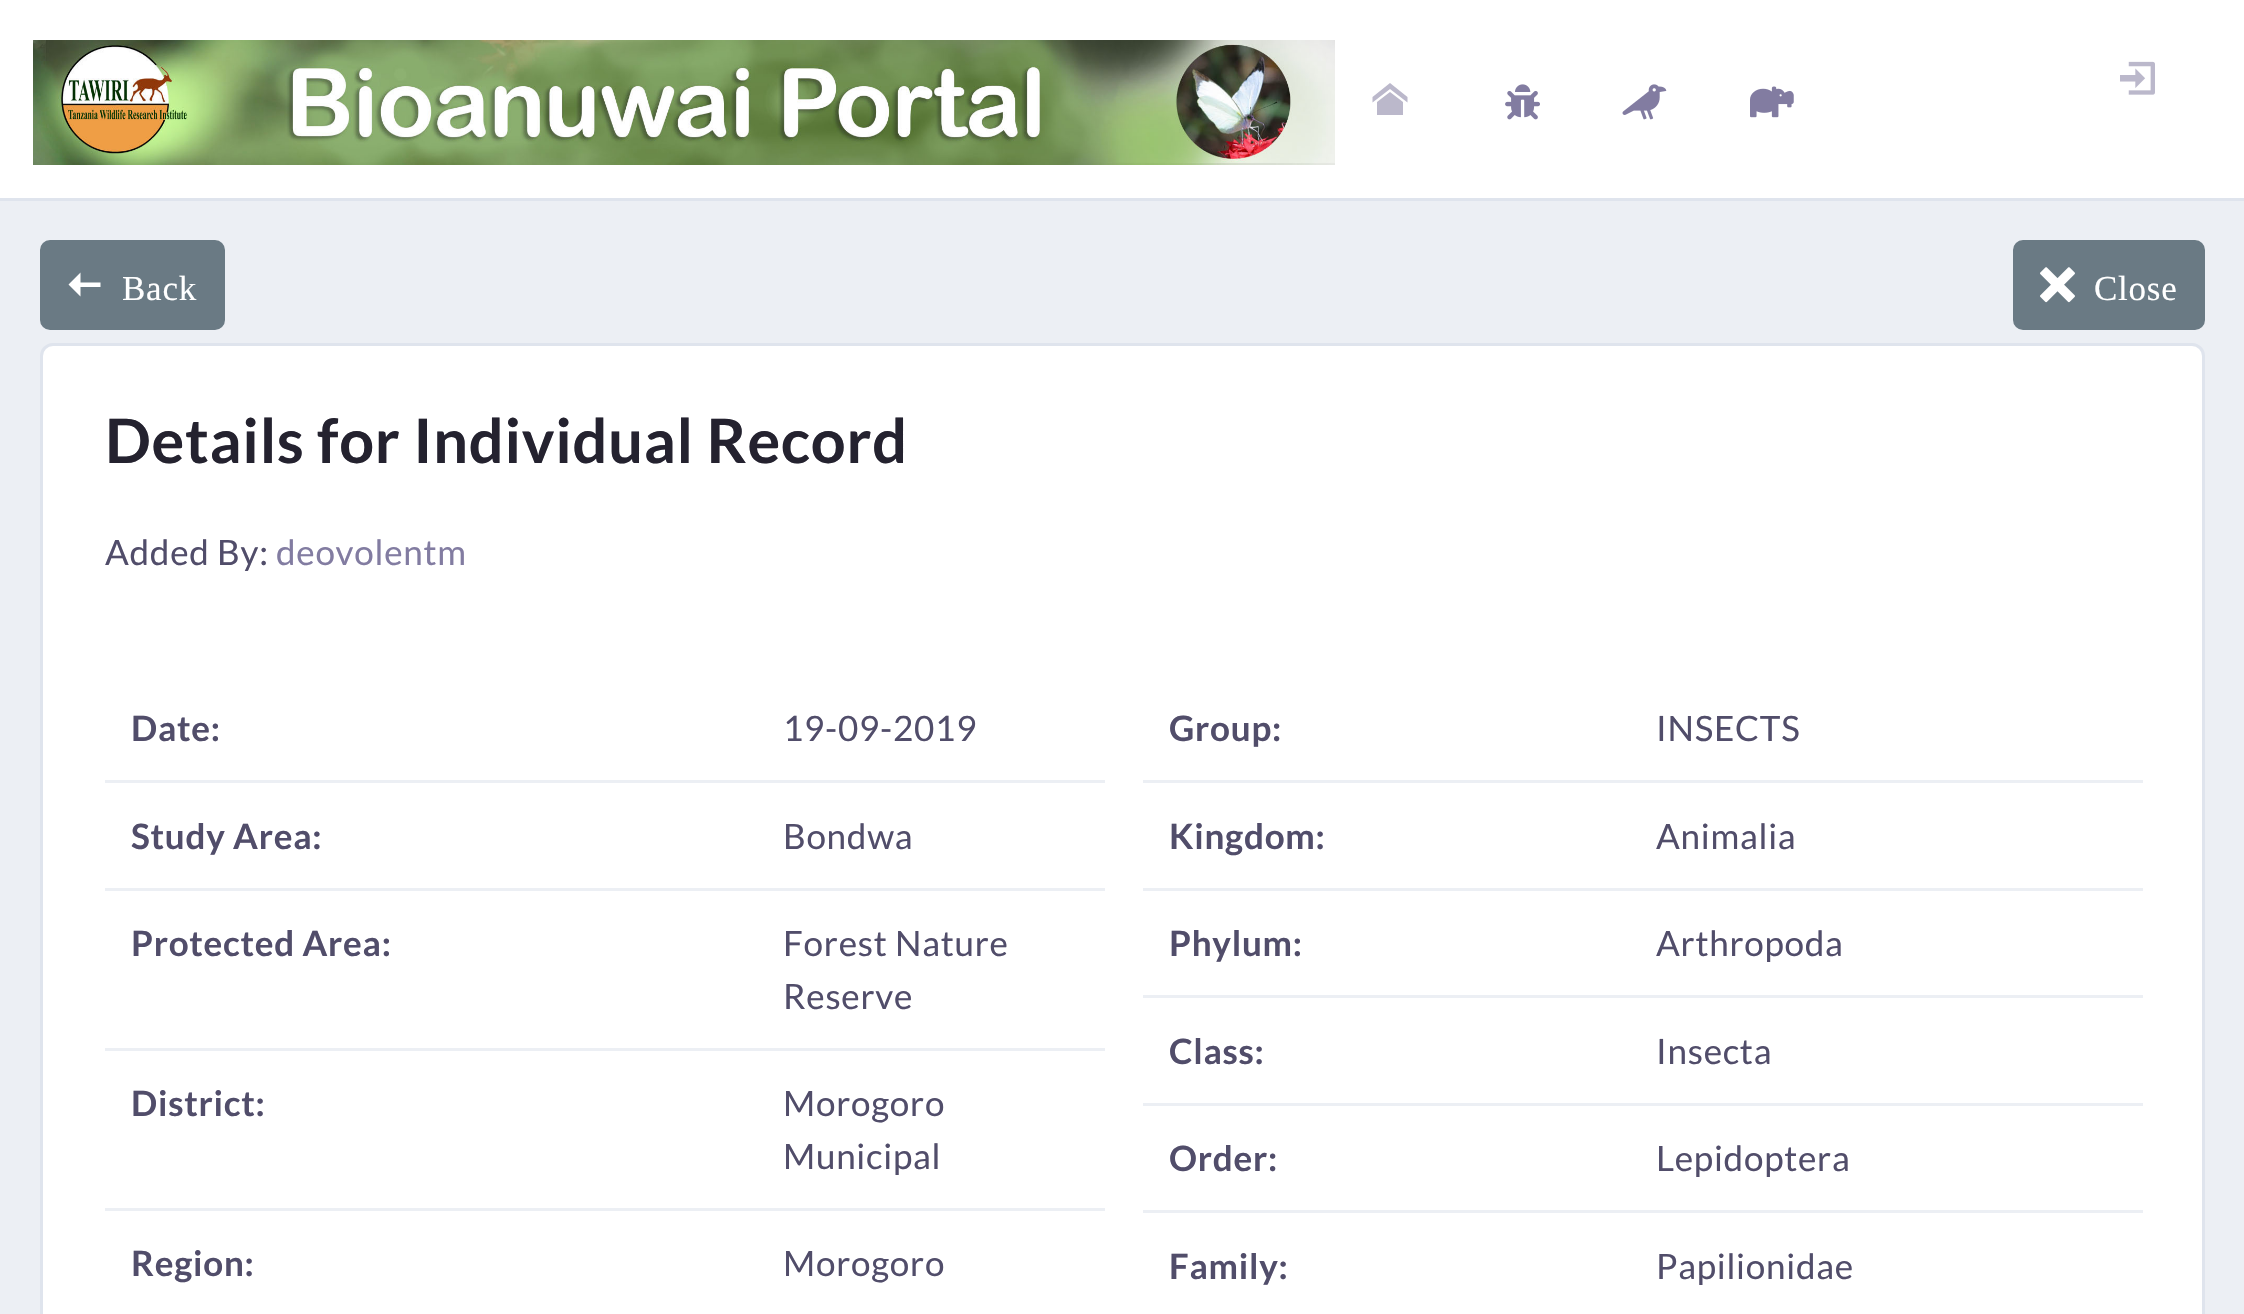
void draw(SkCanvas* c) {
SkPaint p;
p.setAntiAlias(true);
auto F=[&](const char* family, int weight, float size, bool italic = false){SkFontStyle style(weight, SkFontStyle::kNormal_Width,italic ? SkFontStyle::kItalic_Slant : SkFontStyle::kUpright_Slant);SkFont result(fontMgr->matchFamilyStyle(family, style), size);result.setSubpixel(true);return result;};
auto L=[&](const char* s, float x, float y, const SkFont& font, const SkPaint& ink, float letter, float word){std::vector<SkGlyphID> glyphs(font.countText(s, strlen(s), SkTextEncoding::kUTF8));std::vector<float> xs(glyphs.size());font.textToGlyphs(s, strlen(s), SkTextEncoding::kUTF8, glyphs);font.getXPos(glyphs, xs, x);float extra = 0;for (size_t i = 0; i < glyphs.size(); i++) {xs[i] += extra;extra += letter + word * (glyphs[i] == font.unicharToGlyph(' '));}c->drawTextBlob(SkTextBlob::MakeFromPosHGlyphs(glyphs, xs, y, font), 0, 0, ink);};
auto R=[&](float x, float y, float w, float h){c->drawRect(SkRect::MakeXYWH(x, y, w, h), p);};
auto I=[&](const char* path, float x, float y, float w, float h){auto image = SkImages::DeferredFromEncodedData(SkData::MakeFromFileName(path));c->drawImageRect(image, SkRect::MakeXYWH(x, y, w, h), SkSamplingOptions());};
auto P=[&](const char* data, bool evenOdd = false){SkPath result = *SkParsePath::FromSVGString(data);if (evenOdd) result.setFillType(SkPathFillType::kEvenOdd);return result;};
c->clear(0xffeceff4);
p.setColor(0xffffffff);
R(0,0,2244,198);
p.setColor(0xffdfe4ed);
R(0,198,2244,3);
I("1.png",33,40,1302,125);
I("2.png",2120,61,35,34);
p.setColor(0xffbbb8cb);
c->drawPath(P("M1407.5 102.5l-17.5-13.5l-17.5 13.5v-5.5l17.5-14l17.5 14zm-4.5-.5v13h-26v-13l13-10z"),p);
I("3.png",1505,84,35,36);
I("4.png",1622,84,45,36);
I("5.png",1750,86,44,32);
p.setColor(0xff6a7a84);
c->drawRoundRect(SkRect::MakeXYWH(41.5,241.5,182,87),8.5,8.5,p);
p.setStroke(true);
p.setStrokeWidth(3);
c->drawRoundRect(SkRect::MakeXYWH(41.5,241.5,182,87),8.5,8.5,p);
p.setStroke(false);
p.setColor(0xffffffff);
c->drawPath(P("M80.5 272.5l-12 12l12 12v-9.5h20v-4.5h-20z"),p);
auto f1 = F("Liberation Serif",400,35);
L("Back",122,300,f1,p,.75,0);
p.setColor(0xff6a7a84);
c->drawRoundRect(SkRect::MakeXYWH(2014.5,241.5,189,87),8.5,8.5,p);
p.setStroke(true);
c->drawRoundRect(SkRect::MakeXYWH(2014.5,241.5,189,87),8.5,8.5,p);
I("6.png",2040,267,35,36);
p.setStroke(false);
p.setColor(0xffffffff);
L("Close",2094,300,f1,p,.75,0);
c->drawRoundRect(SkRect::MakeXYWH(41.5,344.5,2162,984),11.5,11.5,p);
p.setStroke(true);
p.setColor(0xffdfe4ed);
c->drawRoundRect(SkRect::MakeXYWH(41.5,344.5,2162,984),11.5,11.5,p);
auto f2 = F("Lato",700,61.25);
p.setStroke(false);
p.setColor(0xff24222f);
L("Details for Individual Record",105,463,f2,p,.75,0);
auto f3 = F("Lato",400,35);
p.setColor(0xff514d6a);
L("Added By:",105,565,f3,p,.75,0);
p.setColor(0xff827ca1);
L("deovolentm",276,565,f3,p,.75,0);
auto f4 = F("Lato",700,35);
p.setColor(0xff514d6a);
L("Date:",131,741,f4,p,.75,0);
L("19-09-2019",783,741,f3,p,.75,0);
L("Study Area:",131,849,f4,p,.75,0);
p.setColor(0xffeceff4);
R(105,780,1000,3);
p.setColor(0xff514d6a);
L("Bondwa",783,849,f3,p,.75,0);
L("Protected Area:",131,956,f4,p,.75,0);
p.setColor(0xffeceff4);
R(105,888,1000,3);
p.setColor(0xff514d6a);
L("Forest Nature",783,956,f3,p,.75,0);
L("Reserve",783,1009,f3,p,.75,0);
L("District:",131,1116,f4,p,.75,0);
p.setColor(0xffeceff4);
R(105,1048,1000,3);
p.setColor(0xff514d6a);
L("Morogoro",783,1116,f3,p,.75,0);
L("Municipal",783,1169,f3,p,.75,0);
L("Region:",131,1276,f4,p,.75,0);
p.setColor(0xffeceff4);
R(105,1208,1000,3);
p.setColor(0xff514d6a);
L("Morogoro",783,1276,f3,p,.75,0);
L("Group:",1169,741,f4,p,.75,0);
L("INSECTS",1656,741,f3,p,.75,0);
L("Kingdom:",1169,849,f4,p,.75,0);
p.setColor(0xffeceff4);
R(1143,780,1000,3);
p.setColor(0xff514d6a);
L("Animalia",1656,849,f3,p,.75,0);
L("Phylum:",1169,956,f4,p,.75,0);
p.setColor(0xffeceff4);
R(1143,888,1000,3);
p.setColor(0xff514d6a);
L("Arthropoda",1656,956,f3,p,.75,0);
L("Class:",1169,1064,f4,p,.75,0);
p.setColor(0xffeceff4);
R(1143,995,1000,3);
p.setColor(0xff514d6a);
L("Insecta",1656,1064,f3,p,.75,0);
L("Order:",1169,1171,f4,p,.75,0);
p.setColor(0xffeceff4);
R(1143,1103,1000,3);
p.setColor(0xff514d6a);
L("Lepidoptera",1656,1171,f3,p,.75,0);
L("Family:",1169,1279,f4,p,.75,0);
p.setColor(0xffeceff4);
R(1143,1210,1000,3);
p.setColor(0xff514d6a);
L("Papilionidae",1656,1279,f3,p,.75,0);
}
